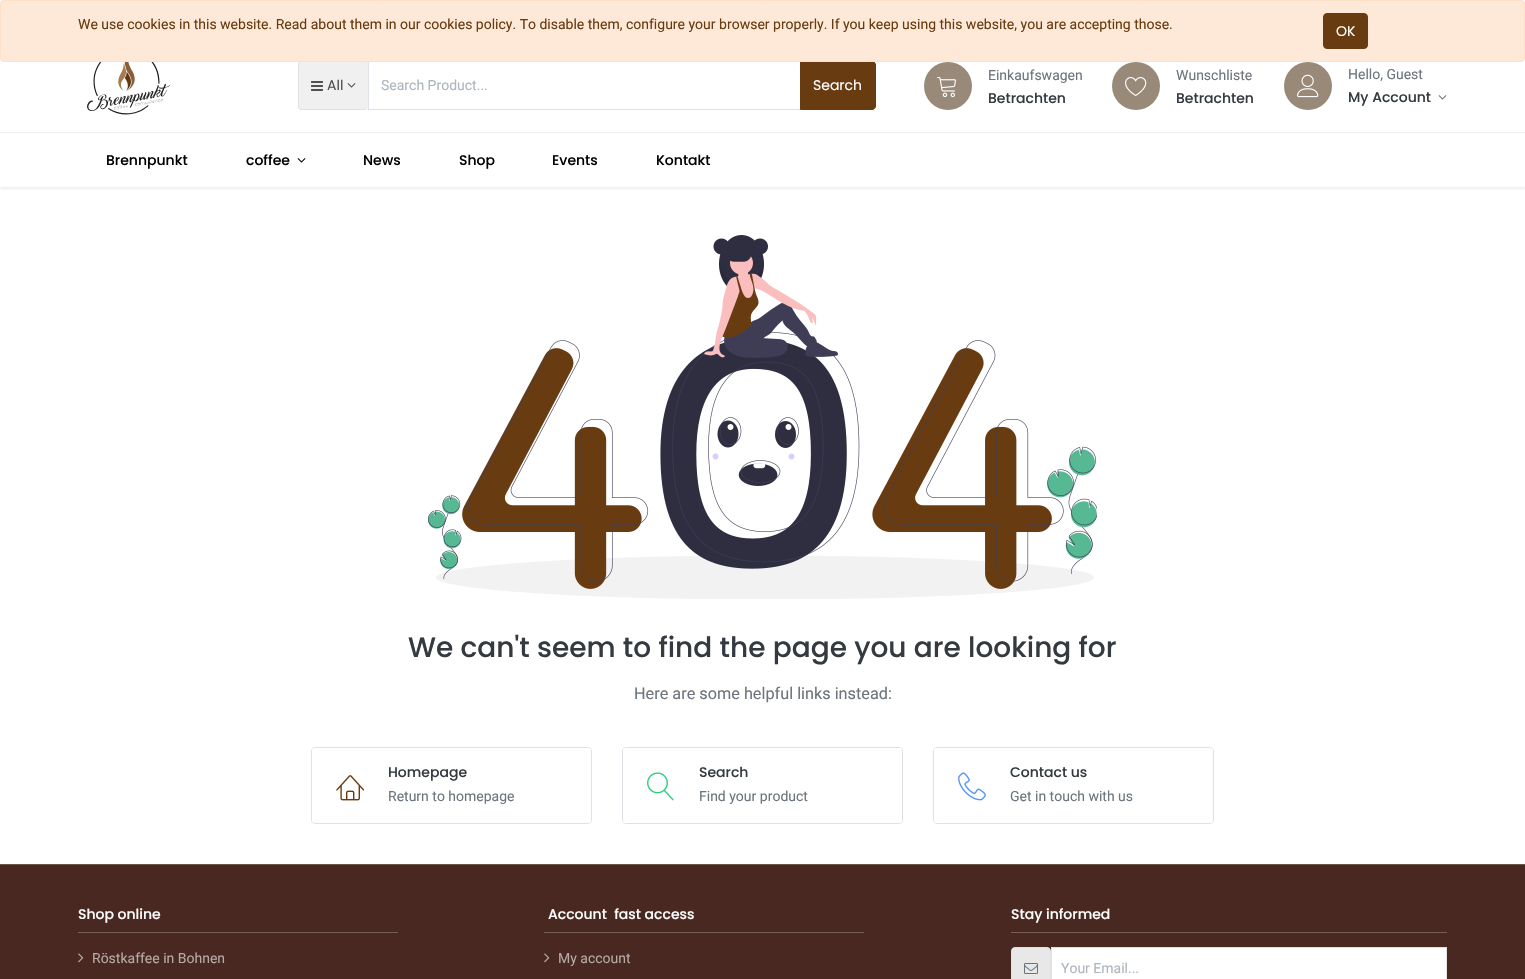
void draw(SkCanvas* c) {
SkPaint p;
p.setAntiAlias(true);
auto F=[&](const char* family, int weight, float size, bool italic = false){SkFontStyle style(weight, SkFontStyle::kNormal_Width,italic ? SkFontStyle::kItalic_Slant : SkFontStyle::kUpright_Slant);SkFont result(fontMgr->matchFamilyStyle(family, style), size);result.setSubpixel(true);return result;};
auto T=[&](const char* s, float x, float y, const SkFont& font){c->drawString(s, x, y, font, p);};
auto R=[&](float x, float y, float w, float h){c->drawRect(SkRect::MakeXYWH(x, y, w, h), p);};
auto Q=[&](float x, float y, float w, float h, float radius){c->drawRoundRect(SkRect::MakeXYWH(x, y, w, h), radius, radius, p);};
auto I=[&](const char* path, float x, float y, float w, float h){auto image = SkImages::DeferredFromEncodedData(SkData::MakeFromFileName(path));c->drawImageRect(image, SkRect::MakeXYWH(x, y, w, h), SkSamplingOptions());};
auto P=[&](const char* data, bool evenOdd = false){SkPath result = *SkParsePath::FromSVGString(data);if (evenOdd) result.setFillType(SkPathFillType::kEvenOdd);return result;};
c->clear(0xffffffff);
p.setColor(0xfff9f7f5);
R(0,0,1525,4);
p.setColor(0xfff0f0f0);
Q(298,61,70,49,4);
p.setColor(0xffdee2e6);
c->drawPath(P("M302 61h62c2 0 4 2 4 4v41c0 2-2 4-4 4h-62c-2 0-4-2-4-4v-41c0-2 2-4 4-4zm0 1h62c2 0 4 1 4 3v41c0 2-2 3-4 3h-62c-2 0-3-1-3-3v-41c0-2 1-3 3-3z",true),p);
p.setStroke(true);
p.setStrokeWidth(1);
c->drawRect(SkRect::MakeXYWH(368.5,61.5,432,48),p);
p.setStroke(false);
p.setColor(0xff683c10);
c->drawPath(P("M800.5 61.5h71.5c2 0 3.5 1.5 3.5 3.5v41c0 2-1.5 3.5-3.5 3.5h-71.5z"),p);
p.setStroke(true);
c->drawPath(P("M800.5 61.5h71.5c2 0 3.5 1.5 3.5 3.5v41c0 2-1.5 3.5-3.5 3.5h-71.5z"),p);
p.setStroke(false);
p.setColor(0xfffee8d8);
c->drawRoundRect(SkRect::MakeXYWH(.5,.5,1524,61),3.5,3.5,p);
p.setStroke(true);
p.setColor(0xfffedfc8);
c->drawRoundRect(SkRect::MakeXYWH(.5,.5,1524,61),3.5,3.5,p);
auto f1 = F("Roboto",400,14);
p.setStroke(false);
p.setColor(0xff683c10);
T("We use cookies in this website. Read about them in our cookies policy. To disable them, configure your browser properly. If you keep using this website, you are accepting those.",78,29,f1);
c->drawRoundRect(SkRect::MakeXYWH(1323.5,13.5,44,35),3.5,3.5,p);
p.setStroke(true);
c->drawRoundRect(SkRect::MakeXYWH(1323.5,13.5,44,35),3.5,3.5,p);
auto f2 = F("Poppins",400,14);
p.setStroke(false);
p.setColor(0xffffffff);
T("OK",1336,36,f2);
p.setColor(0xffedeeef);
R(0,132,1525,1);
I("1.png",87,62,83,53);
I("2.png",311,81,12,10);
p.setColor(0xff505050);
T("All",327,90,f2);
I("3.png",347,83,9,5);
p.setColor(0xffadb5bd);
T("Search Product...",381,90,f1);
p.setColor(0xffffffff);
T("Search",813,90,f2);
p.setColor(0xff988979);
c->drawCircle(948,86,24,p);
I("4.png",937,77,19,21);
p.setColor(0xff6c757d);
T("Einkaufswagen",988,80,f1);
auto f3 = F("Poppins",500,14);
p.setColor(0xff343a40);
T("Betrachten",988,103,f3);
p.setColor(0xff988979);
c->drawCircle(1136,86,24,p);
I("5.png",1125,77,22,19);
p.setColor(0xff6c757d);
T("Wunschliste",1176,80,f1);
p.setColor(0xff343a40);
T("Betrachten",1176,103,f3);
p.setColor(0xff988979);
c->drawCircle(1308,86,24,p);
I("6.png",1297,74,22,24);
p.setColor(0xff6c757d);
T("Hello, Guest",1348,79,f1);
p.setColor(0xff343a40);
T("My Account",1348,102,f3);
I("7.png",1438,95,9,5);
c->save();
c->clipRect(SkRect::MakeXYWH(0,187,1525,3));
p.setColor(0x12000000);
p.setMaskFilter(SkMaskFilter::MakeBlur(kNormal_SkBlurStyle, 2));
c->drawRect(SkRect::MakeXYWH(0,135,1525,54),p);
p.setMaskFilter(nullptr);
c->restore();
p.setColor(0xff000000);
T("Brennpunkt",106,165,f3);
T("coffee",246,165,f3);
I("8.png",297,158,9,5);
T("News",363,165,f3);
T("Shop",459,165,f3);
T("Events",552,165,f3);
T("Kontakt",656,165,f3);
I("9.png",428,235,669,364);
auto f4 = F("Poppins",500,28);
p.setColor(0xff343a40);
T("We can't seem to find the page you are looking for",408,657,f4);
auto f5 = F("Roboto",400,16.25);
p.setColor(0xff6c757d);
T("Here are some helpful links instead:",634,699,f5);
p.setStroke(true);
p.setColor(0xffdee2e6);
c->drawRoundRect(SkRect::MakeXYWH(311.5,747.5,280,76),3.5,3.5,p);
p.setStroke(false);
p.setColor(0xe6ffffff);
Q(312,748,279,75,3);
I("10.png",336,775,29,26);
p.setColor(0xff343a40);
T("Homepage",388,777,f3);
p.setColor(0xff6c757d);
T("Return to homepage",388,801,f1);
p.setStroke(true);
p.setColor(0xffdee2e6);
c->drawRoundRect(SkRect::MakeXYWH(622.5,747.5,280,76),3.5,3.5,p);
p.setStroke(false);
p.setColor(0xe6ffffff);
Q(623,748,279,75,3);
I("11.png",647,772,27,29);
p.setColor(0xff343a40);
T("Search",699,777,f3);
p.setColor(0xff6c757d);
T("Find your product",699,801,f1);
p.setStroke(true);
p.setColor(0xffdee2e6);
c->drawRoundRect(SkRect::MakeXYWH(933.5,747.5,280,76),3.5,3.5,p);
p.setStroke(false);
p.setColor(0xe6ffffff);
Q(934,748,279,75,3);
I("12.png",958,772,28,29);
p.setColor(0xff343a40);
T("Contact us",1010,777,f3);
p.setColor(0xff6c757d);
T("Get in touch with us",1010,801,f1);
p.setColor(0xff482820);
R(0,865,1525,114);
p.setColor(0xff6d534d);
R(0,864,1525,1);
p.setColor(0xff765e58);
R(78,932,320,1);
p.setColor(0xffffffff);
T("Shop online",78,919,f3);
I("13.png",78,953,6,10);
p.setColor(0xffb6a9a6);
T("Röstkaffee in Bohnen",92,963,f1);
p.setColor(0xff765e58);
R(544,932,320,1);
p.setColor(0xffffffff);
T("Account  fast access",548,919,f3);
I("13.png",544,953,6,10);
p.setColor(0xffb6a9a6);
T("My account",558,963,f1);
p.setColor(0xff765e58);
R(1011,932,436,1);
p.setColor(0xffffffff);
T("Stay informed",1011,919,f3);
p.setColor(0xffe8e8e8);
c->drawRoundRect(SkRect::MakeXYWH(1011.5,947.5,39,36),3.5,3.5,p);
p.setStroke(true);
p.setColor(0xffdee2e6);
c->drawRoundRect(SkRect::MakeXYWH(1011.5,947.5,39,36),3.5,3.5,p);
I("14.png",1024,963,14,11);
p.setStroke(false);
p.setColor(0xffffffff);
c->drawRect(SkRect::MakeXYWH(1051.5,947.5,395,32),p);
p.setStroke(true);
p.setColor(0xffdee2e6);
c->drawRect(SkRect::MakeXYWH(1051.5,947.5,395,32),p);
p.setStroke(false);
p.setColor(0xffadb5bd);
T("Your Email...",1061,973,f1);
}
